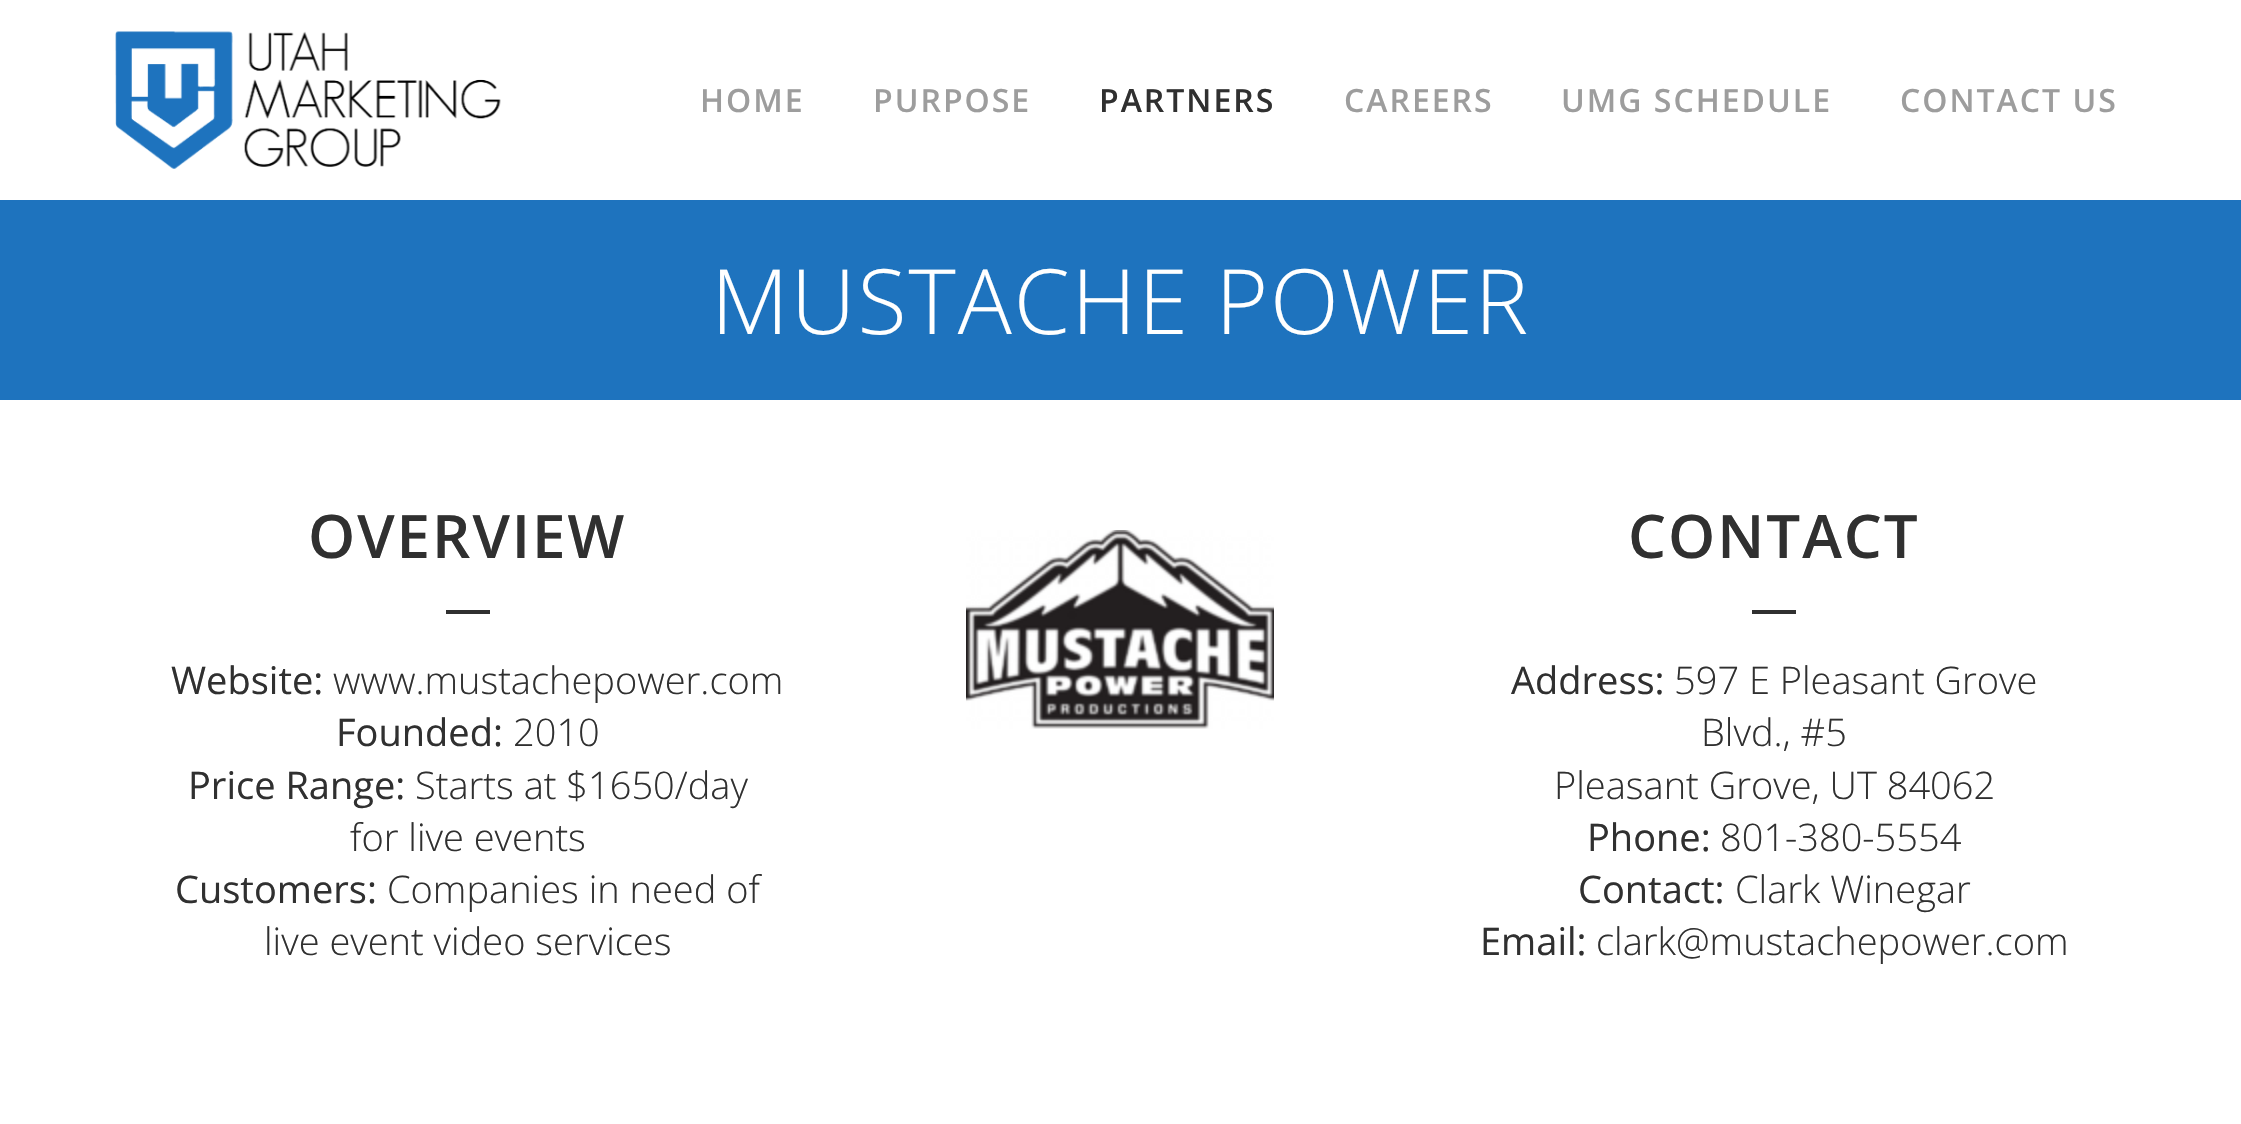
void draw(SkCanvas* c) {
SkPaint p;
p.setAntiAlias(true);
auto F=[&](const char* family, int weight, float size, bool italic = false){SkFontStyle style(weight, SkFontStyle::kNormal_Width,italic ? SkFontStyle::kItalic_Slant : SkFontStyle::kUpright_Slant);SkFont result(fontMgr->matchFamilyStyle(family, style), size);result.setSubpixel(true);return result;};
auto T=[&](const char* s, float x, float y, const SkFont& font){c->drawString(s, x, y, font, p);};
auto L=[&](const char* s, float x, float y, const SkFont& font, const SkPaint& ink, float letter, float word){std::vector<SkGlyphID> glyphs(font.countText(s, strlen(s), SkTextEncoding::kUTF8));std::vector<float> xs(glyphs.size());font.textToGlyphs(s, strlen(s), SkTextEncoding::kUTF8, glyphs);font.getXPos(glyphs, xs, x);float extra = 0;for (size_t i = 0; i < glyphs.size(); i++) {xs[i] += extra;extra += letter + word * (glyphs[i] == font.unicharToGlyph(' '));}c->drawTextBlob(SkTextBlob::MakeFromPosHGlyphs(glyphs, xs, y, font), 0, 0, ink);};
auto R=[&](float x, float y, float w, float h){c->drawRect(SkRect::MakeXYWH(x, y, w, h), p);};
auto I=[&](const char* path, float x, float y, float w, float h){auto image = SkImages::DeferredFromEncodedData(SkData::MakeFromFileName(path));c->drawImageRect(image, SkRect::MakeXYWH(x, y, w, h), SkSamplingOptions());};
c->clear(0xffffffff);
I("1.png",115,31,386,138);
auto f1 = F("Open Sans",600,32);
p.setColor(0xff9d9d9d);
L("HOME",700,112,f1,p,2,0);
L("PURPOSE",873,112,f1,p,2,0);
p.setColor(0xff303030);
L("PARTNERS",1099,112,f1,p,2,0);
p.setColor(0xff9d9d9d);
L("CAREERS",1344,112,f1,p,2,0);
L("UMG SCHEDULE",1561,112,f1,p,2,0);
L("CONTACT US",1900,112,f1,p,2,0);
p.setColor(0xff1e73be);
R(0,200,2241,200);
auto f2 = F("Open Sans",300,90);
p.setColor(0xffffffff);
L("MUSTACHE POWER",711,334,f2,p,2,0);
auto f3 = F("Open Sans",600,60);
p.setColor(0xff303030);
L("OVERVIEW",308,558,f3,p,2,0);
R(446,610,44,4);
auto f4 = F("Open Sans",400,38);
T("Website:",171,694,f4);
auto f5 = F("Open Sans",300,38);
T("www.mustachepower.com",333,694,f5);
T("Founded:",336,746,f4);
T("2010",513,746,f5);
T("Price Range:",188,799,f4);
T("Starts at $1650/day",415,799,f5);
T("for live events",350,851,f5);
T("Customers:",175,903,f4);
T("Companies in need of",387,903,f5);
T("live event video services",264,955,f5);
I("2.png",966,530,308,199);
L("CONTACT",1628,558,f3,p,2,0);
R(1752,610,44,4);
T("Address:",1511,694,f4);
T("597 E Pleasant Grove",1674,694,f5);
T("Blvd., #5",1701,746,f5);
T("Pleasant Grove, UT 84062",1554,799,f5);
T("Phone:",1587,851,f4);
T("801-380-5554",1720,851,f5);
T("Contact:",1578,903,f4);
T("Clark Winegar",1735,903,f5);
T("Email:",1480,955,f4);
T("clark@mustachepower.com",1596,955,f5);
}
